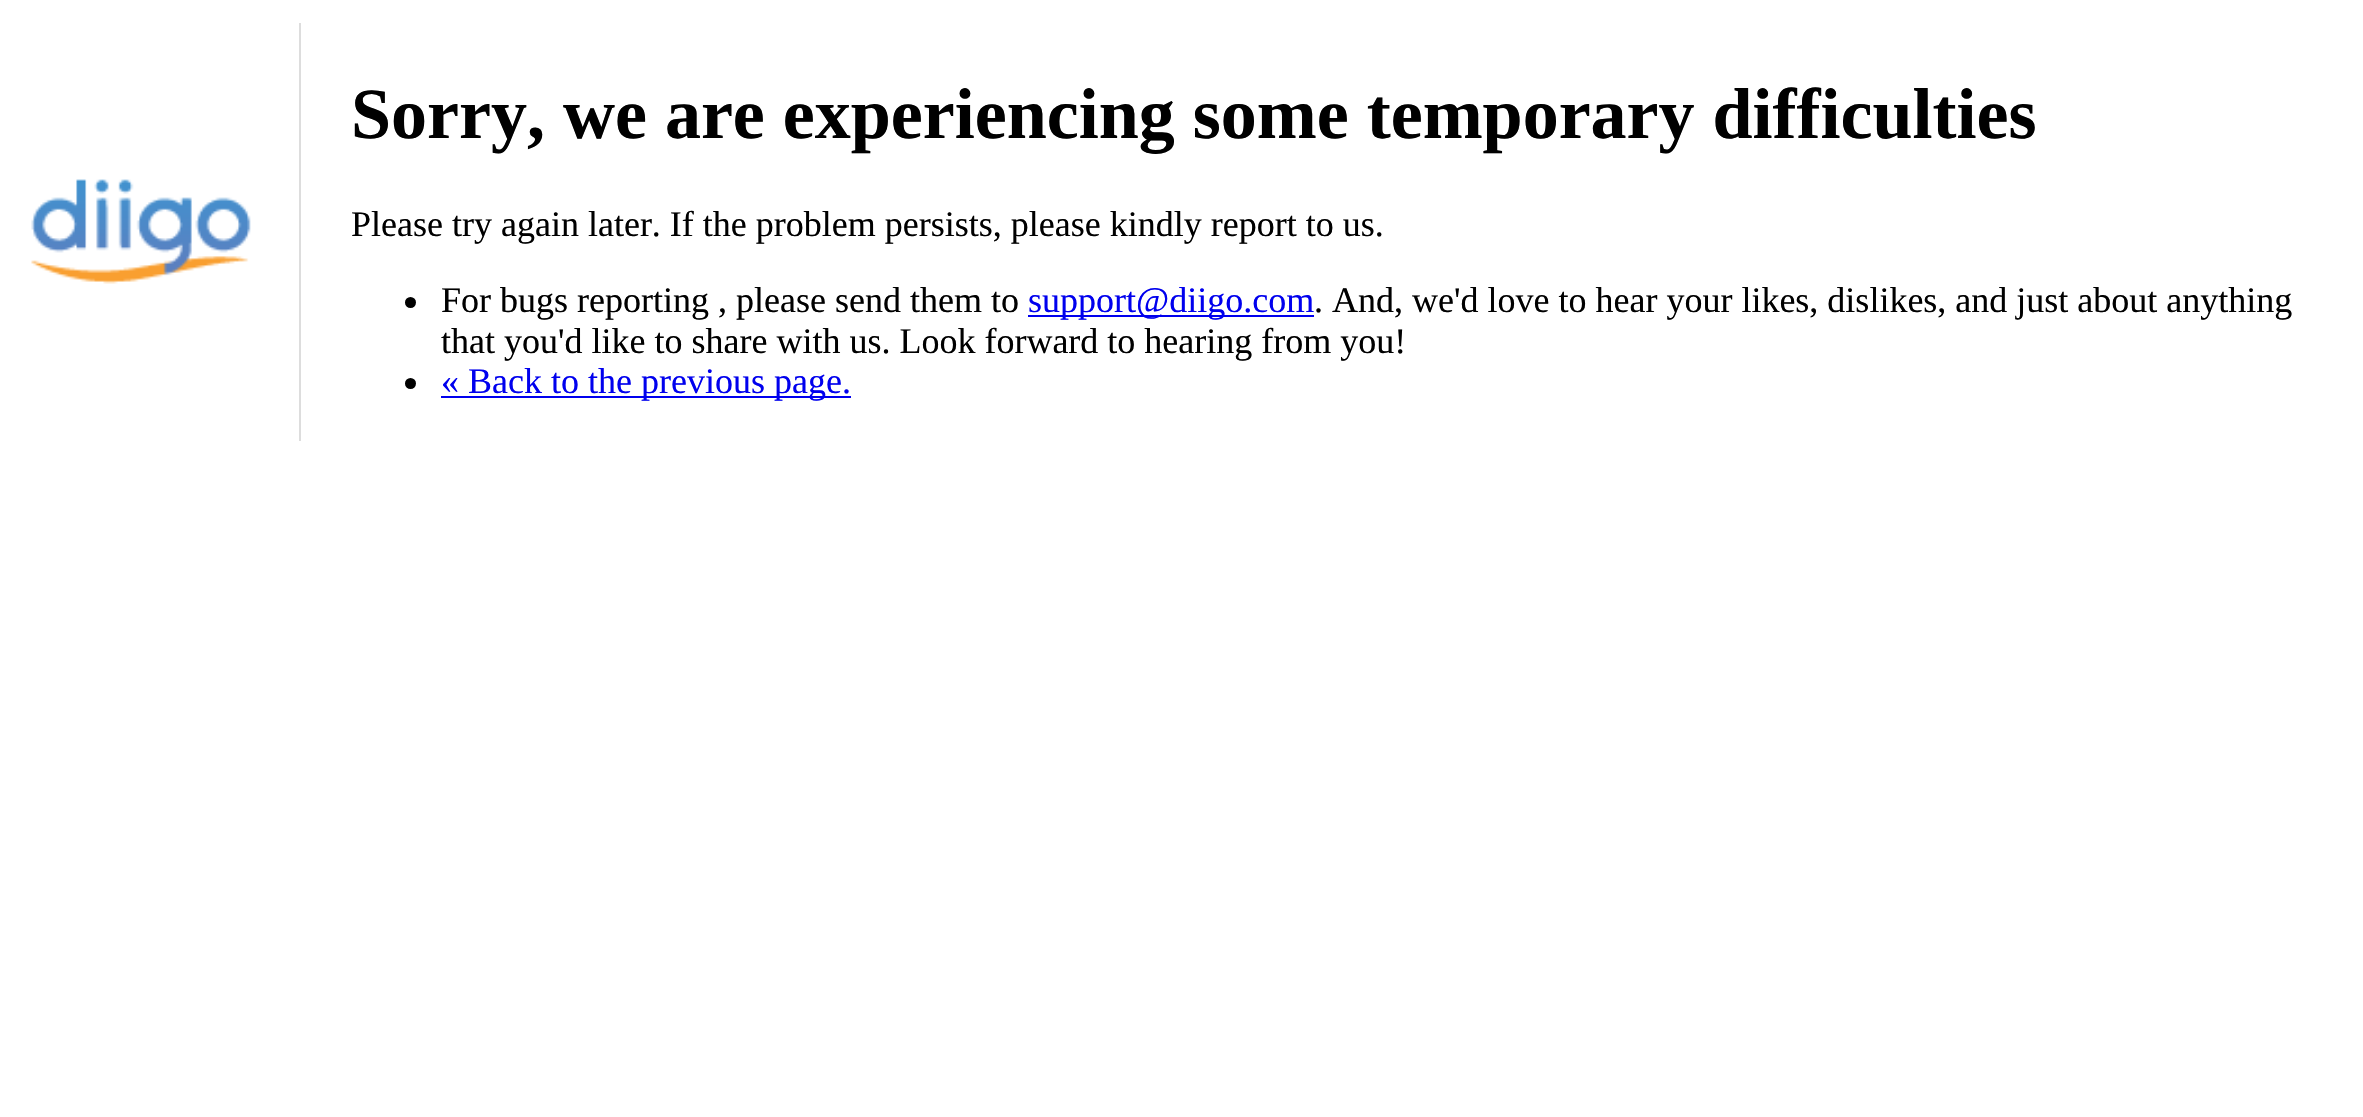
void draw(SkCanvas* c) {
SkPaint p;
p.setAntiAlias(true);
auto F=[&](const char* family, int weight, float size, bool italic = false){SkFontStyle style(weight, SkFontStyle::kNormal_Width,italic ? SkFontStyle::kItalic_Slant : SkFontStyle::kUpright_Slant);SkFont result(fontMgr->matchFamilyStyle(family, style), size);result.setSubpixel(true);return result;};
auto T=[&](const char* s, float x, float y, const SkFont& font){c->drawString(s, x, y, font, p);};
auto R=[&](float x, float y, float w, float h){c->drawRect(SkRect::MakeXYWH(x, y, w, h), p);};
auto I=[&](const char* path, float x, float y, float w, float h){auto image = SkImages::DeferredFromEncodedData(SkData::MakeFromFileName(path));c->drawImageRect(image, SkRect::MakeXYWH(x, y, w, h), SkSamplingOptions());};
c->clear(0xffffffff);
p.setColor(0xffdddddd);
R(299,23,2,418);
I("1.png",31,179,220,105);
auto f1 = F("Liberation Serif",700,72);
p.setColor(0xff000000);
T("Sorry, we are experiencing some temporary difficulties",351,138,f1);
auto f2 = F("Liberation Serif",400,36);
T("Please try again later. If the problem persists, please kindly report to us.",351,236,f2);
c->drawCircle(410.5,302.5,5.5,p);
T("For bugs reporting , please send them to",441,312,f2);
p.setColor(0xff0000ee);
R(1028,315,286,2);
T("support@diigo.com",1028,312,f2);
p.setColor(0xff000000);
T(". And, we'd love to hear your likes, dislikes, and just about anything",1314,312,f2);
T("that you'd like to share with us. Look forward to hearing from you!",441,353,f2);
c->drawCircle(410.5,383.5,5.5,p);
p.setColor(0xff0000ee);
R(441,396,410,2);
T("« Back to the previous page.",441,393,f2);
}
